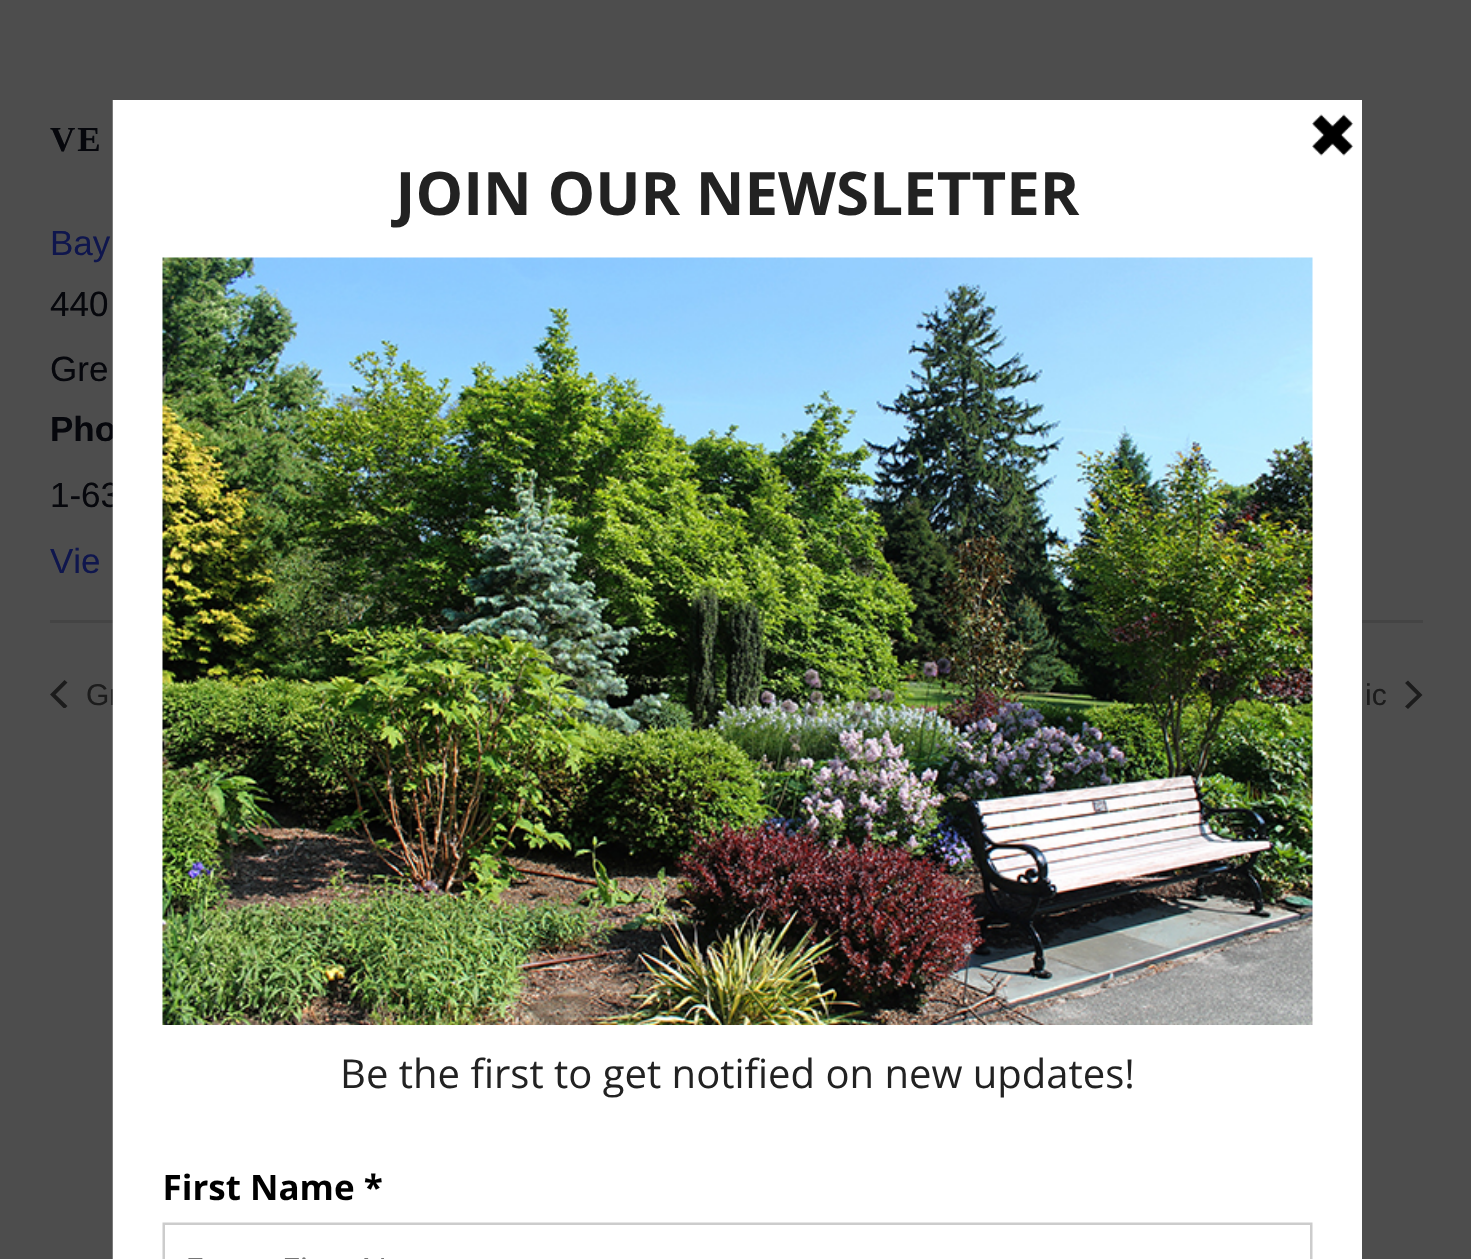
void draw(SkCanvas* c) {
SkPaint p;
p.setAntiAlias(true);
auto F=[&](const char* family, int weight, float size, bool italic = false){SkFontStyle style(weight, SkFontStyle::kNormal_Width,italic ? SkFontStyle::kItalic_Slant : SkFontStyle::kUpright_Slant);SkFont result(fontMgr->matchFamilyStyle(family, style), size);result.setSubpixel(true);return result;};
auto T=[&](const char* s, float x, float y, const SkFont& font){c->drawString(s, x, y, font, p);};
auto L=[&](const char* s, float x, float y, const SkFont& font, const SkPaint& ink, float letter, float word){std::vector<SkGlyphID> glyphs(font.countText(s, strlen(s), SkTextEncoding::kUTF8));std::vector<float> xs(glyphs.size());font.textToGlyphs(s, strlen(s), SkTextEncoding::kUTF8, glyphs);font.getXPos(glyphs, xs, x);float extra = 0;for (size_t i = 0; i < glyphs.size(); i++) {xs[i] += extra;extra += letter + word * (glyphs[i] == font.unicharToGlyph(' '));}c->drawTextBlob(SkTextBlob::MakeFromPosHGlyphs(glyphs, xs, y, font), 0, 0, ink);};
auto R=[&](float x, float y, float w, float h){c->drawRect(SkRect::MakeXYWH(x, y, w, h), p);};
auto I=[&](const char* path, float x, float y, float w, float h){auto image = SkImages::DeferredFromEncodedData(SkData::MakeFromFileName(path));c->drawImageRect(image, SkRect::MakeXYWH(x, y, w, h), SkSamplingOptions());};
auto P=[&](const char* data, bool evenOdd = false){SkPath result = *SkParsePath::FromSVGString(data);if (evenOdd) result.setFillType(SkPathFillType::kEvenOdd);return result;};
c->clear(0xff4d4d4d);
auto f1 = F("Liberation Sans",700,35);
p.setColor(0xff06070c);
T("Pho",50,441,f1);
auto f2 = F("Liberation Sans",400,35);
T("1-63",50,507,f2);
p.setColor(0xff444444);
R(50,620,1373,3);
auto f3 = F("Liberation Sans",400,30);
p.setColor(0xff1c1c1c);
T("Gr",86,705,f3);
I("1.png",112,100,1250,1159);
auto f4 = F("Liberation Serif",700,35);
p.setColor(0xff06070c);
L("VE",50,151,f4,p,2,0);
p.setColor(0xff0f164d);
T("Bay",50,255,f2);
p.setColor(0xff06070c);
T("440",50,316,f2);
T("Gre",50,381,f2);
p.setColor(0xff0f164d);
T("Vie",50,573,f2);
c->save();
c->clipRect(SkRect::MakeXYWH(50,680,18,28));
p.setColor(0xff1c1c1c);
c->drawPath(P("M67.5 706l-3 3l-14.5-14.5l14.5-14.5l3 2.5l-12 12z"),p);
c->restore();
T("ic",1365,705,f3);
c->drawPath(P("M1405 683l3-2.5l14.5 14.5l-14.5 14l-3-2.5l12-11.5z"),p);
}
